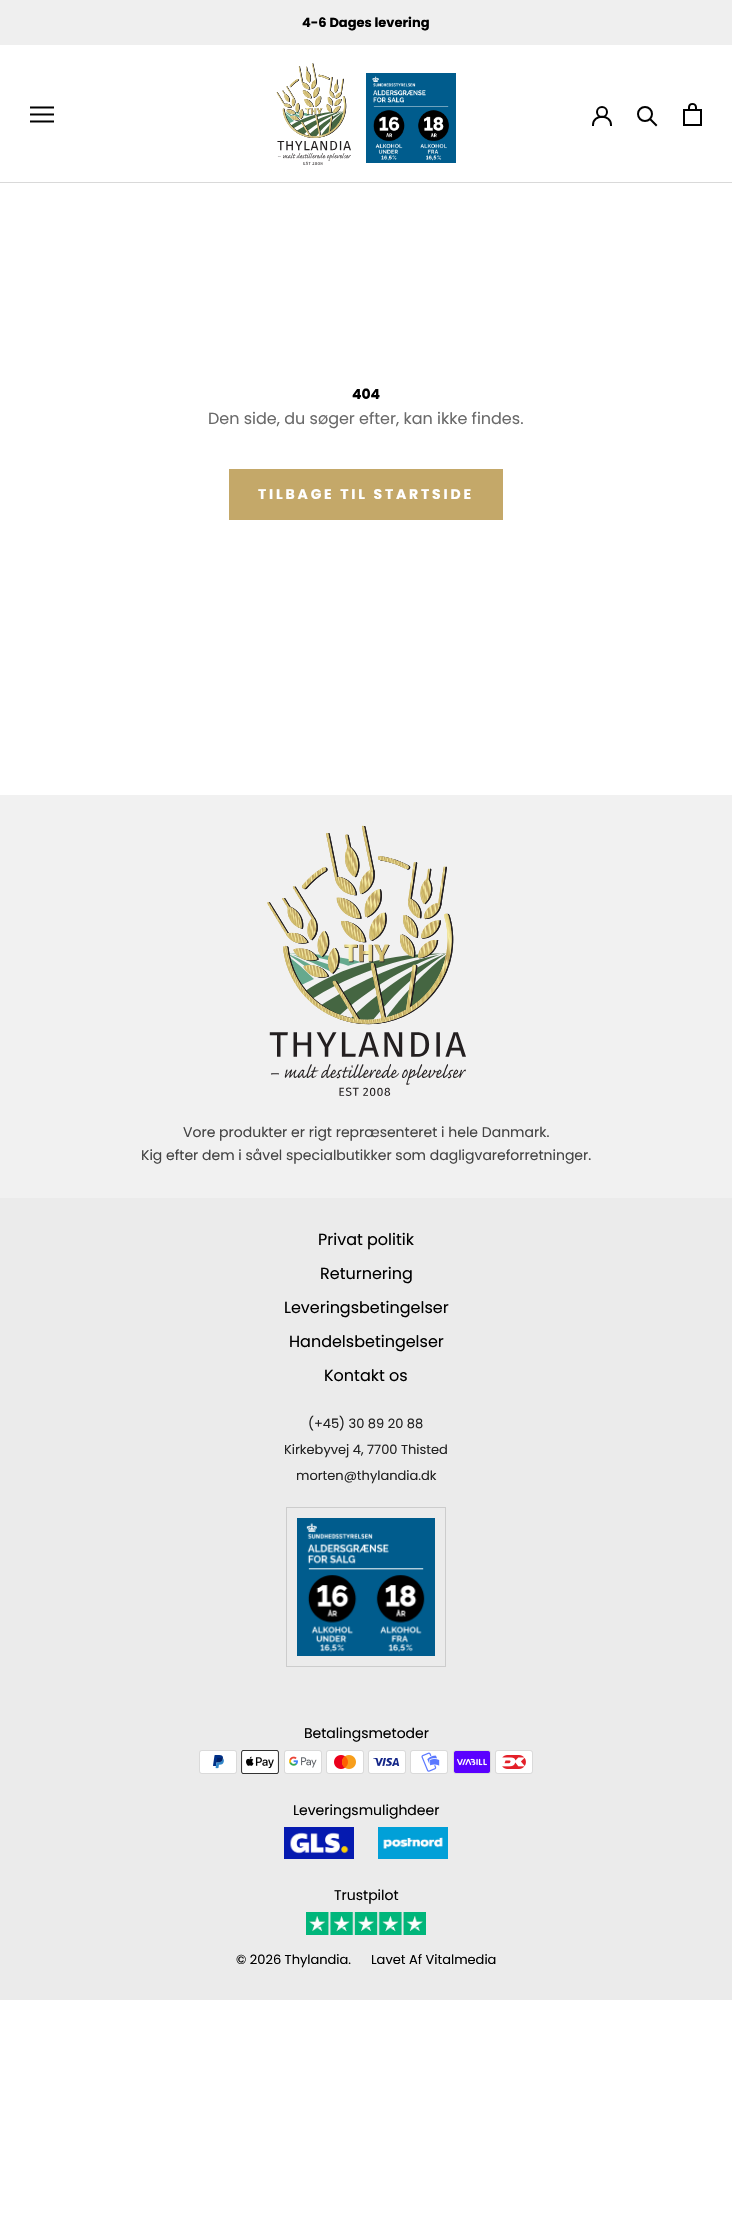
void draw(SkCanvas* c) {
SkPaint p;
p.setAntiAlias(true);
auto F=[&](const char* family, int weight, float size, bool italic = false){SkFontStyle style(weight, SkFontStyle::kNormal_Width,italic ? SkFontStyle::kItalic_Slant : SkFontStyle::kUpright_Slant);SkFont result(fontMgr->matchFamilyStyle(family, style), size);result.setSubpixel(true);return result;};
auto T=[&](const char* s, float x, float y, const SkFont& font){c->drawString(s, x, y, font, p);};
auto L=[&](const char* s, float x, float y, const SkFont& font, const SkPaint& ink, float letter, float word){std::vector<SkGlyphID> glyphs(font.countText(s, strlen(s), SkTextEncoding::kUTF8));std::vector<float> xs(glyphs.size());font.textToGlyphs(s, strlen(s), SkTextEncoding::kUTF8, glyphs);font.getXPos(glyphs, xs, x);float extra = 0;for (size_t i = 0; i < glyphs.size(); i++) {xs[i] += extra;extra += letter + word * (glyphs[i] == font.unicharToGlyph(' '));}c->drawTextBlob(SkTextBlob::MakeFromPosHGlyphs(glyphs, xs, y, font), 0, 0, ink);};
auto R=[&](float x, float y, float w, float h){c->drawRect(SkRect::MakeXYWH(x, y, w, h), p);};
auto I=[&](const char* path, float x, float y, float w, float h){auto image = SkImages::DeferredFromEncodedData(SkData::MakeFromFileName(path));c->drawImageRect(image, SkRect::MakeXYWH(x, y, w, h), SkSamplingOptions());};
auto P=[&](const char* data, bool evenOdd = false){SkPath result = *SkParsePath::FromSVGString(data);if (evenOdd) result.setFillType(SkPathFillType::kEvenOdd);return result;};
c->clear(0xffffffff);
p.setColor(0xffefefef);
R(0,0,732,45);
auto f1 = F("Poppins",700,13);
p.setColor(0xff000000);
T("4-6 Dages levering",302,27,f1);
p.setColor(0xffd9d9d9);
R(0,182,732,1);
I("1.png",30,106,24,17);
I("2.png",276,63,75,102);
I("3.png",366,73,90,90);
p.setStroke(true);
p.setStrokeWidth(2);
p.setStrokeCap(SkPaint::kSquare_Cap);
p.setColor(0xff000000);
c->drawPath(P("M593 125c0-11 18-11 18 0"),p);
p.setStrokeCap(SkPaint::kButt_Cap);
c->drawCircle(602,112,5,p);
p.setStrokeCap(SkPaint::kSquare_Cap);
c->drawPath(P("M656 125l-5.5-5.5"),p);
p.setStrokeCap(SkPaint::kButt_Cap);
c->drawCircle(645,114,7,p);
I("4.png",683,103,19,23);
auto f2 = F("Poppins",700,14);
p.setStroke(false);
T("404",352,399,f2);
auto f3 = F("Poppins",400,16);
p.setColor(0xff6a6a6a);
T("Den side, du søger efter, kan ikke findes.",208,424,f3);
p.setStroke(true);
p.setStrokeWidth(1);
p.setColor(0xffc4a869);
c->drawRect(SkRect::MakeXYWH(229.5,469.5,273,50),p);
p.setStroke(false);
R(230,470,272,49);
p.setColor(0xffffffff);
L("TILBAGE TIL STARTSIDE",258,499,f2,p,2.8,0);
p.setColor(0xfff1f1f1);
R(0,795,732,403);
I("5.png",267,825,199,271);
auto f4 = F("Poppins",400,14);
p.setColor(0xff444444);
T("Vore produkter er rigt repræsenteret i hele Danmark.",183,1137,f4);
T("Kig efter dem i såvel specialbutikker som dagligvareforretninger.",141,1160,f4);
p.setColor(0xffebebeb);
R(0,1198,732,802);
p.setColor(0xff000000);
T("Privat politik",318,1245,f3);
T("Returnering",320,1279,f3);
T("Leveringsbetingelser",284,1313,f3);
T("Handelsbetingelser",289,1347,f3);
T("Kontakt os",324,1381,f3);
auto f5 = F("Poppins",400,13);
p.setColor(0xff222222);
T("(+45) 30 89 20 88",308,1428,f5);
T("Kirkebyvej 4, 7700 Thisted",284,1454,f5);
T("morten@thylandia.dk",296,1480,f5);
p.setStroke(true);
p.setColor(0xffcccccc);
c->drawRect(SkRect::MakeXYWH(286.5,1507.5,159,159),p);
I("6.png",297,1518,138,138);
p.setStroke(false);
p.setColor(0xff000000);
T("Betalingsmetoder",304,1738,f4);
I("7.png",199,1750,38,24);
I("8.png",241,1750,38,24);
I("9.png",284,1750,38,24);
I("10.png",326,1750,38,24);
I("11.png",368,1750,38,24);
I("12.png",410,1750,38,24);
I("13.png",453,1750,38,24);
I("14.png",495,1750,38,24);
T("Leveringsmulighdeer",293,1815,f4);
I("15.png",284,1827,70,32);
I("16.png",378,1827,70,32);
T("Trustpilot",334,1900,f4);
I("17.png",306,1912,120,23);
T("© 2026 Thylandia.",236,1964,f5);
T("Lavet Af Vitalmedia",371,1964,f5);
}
